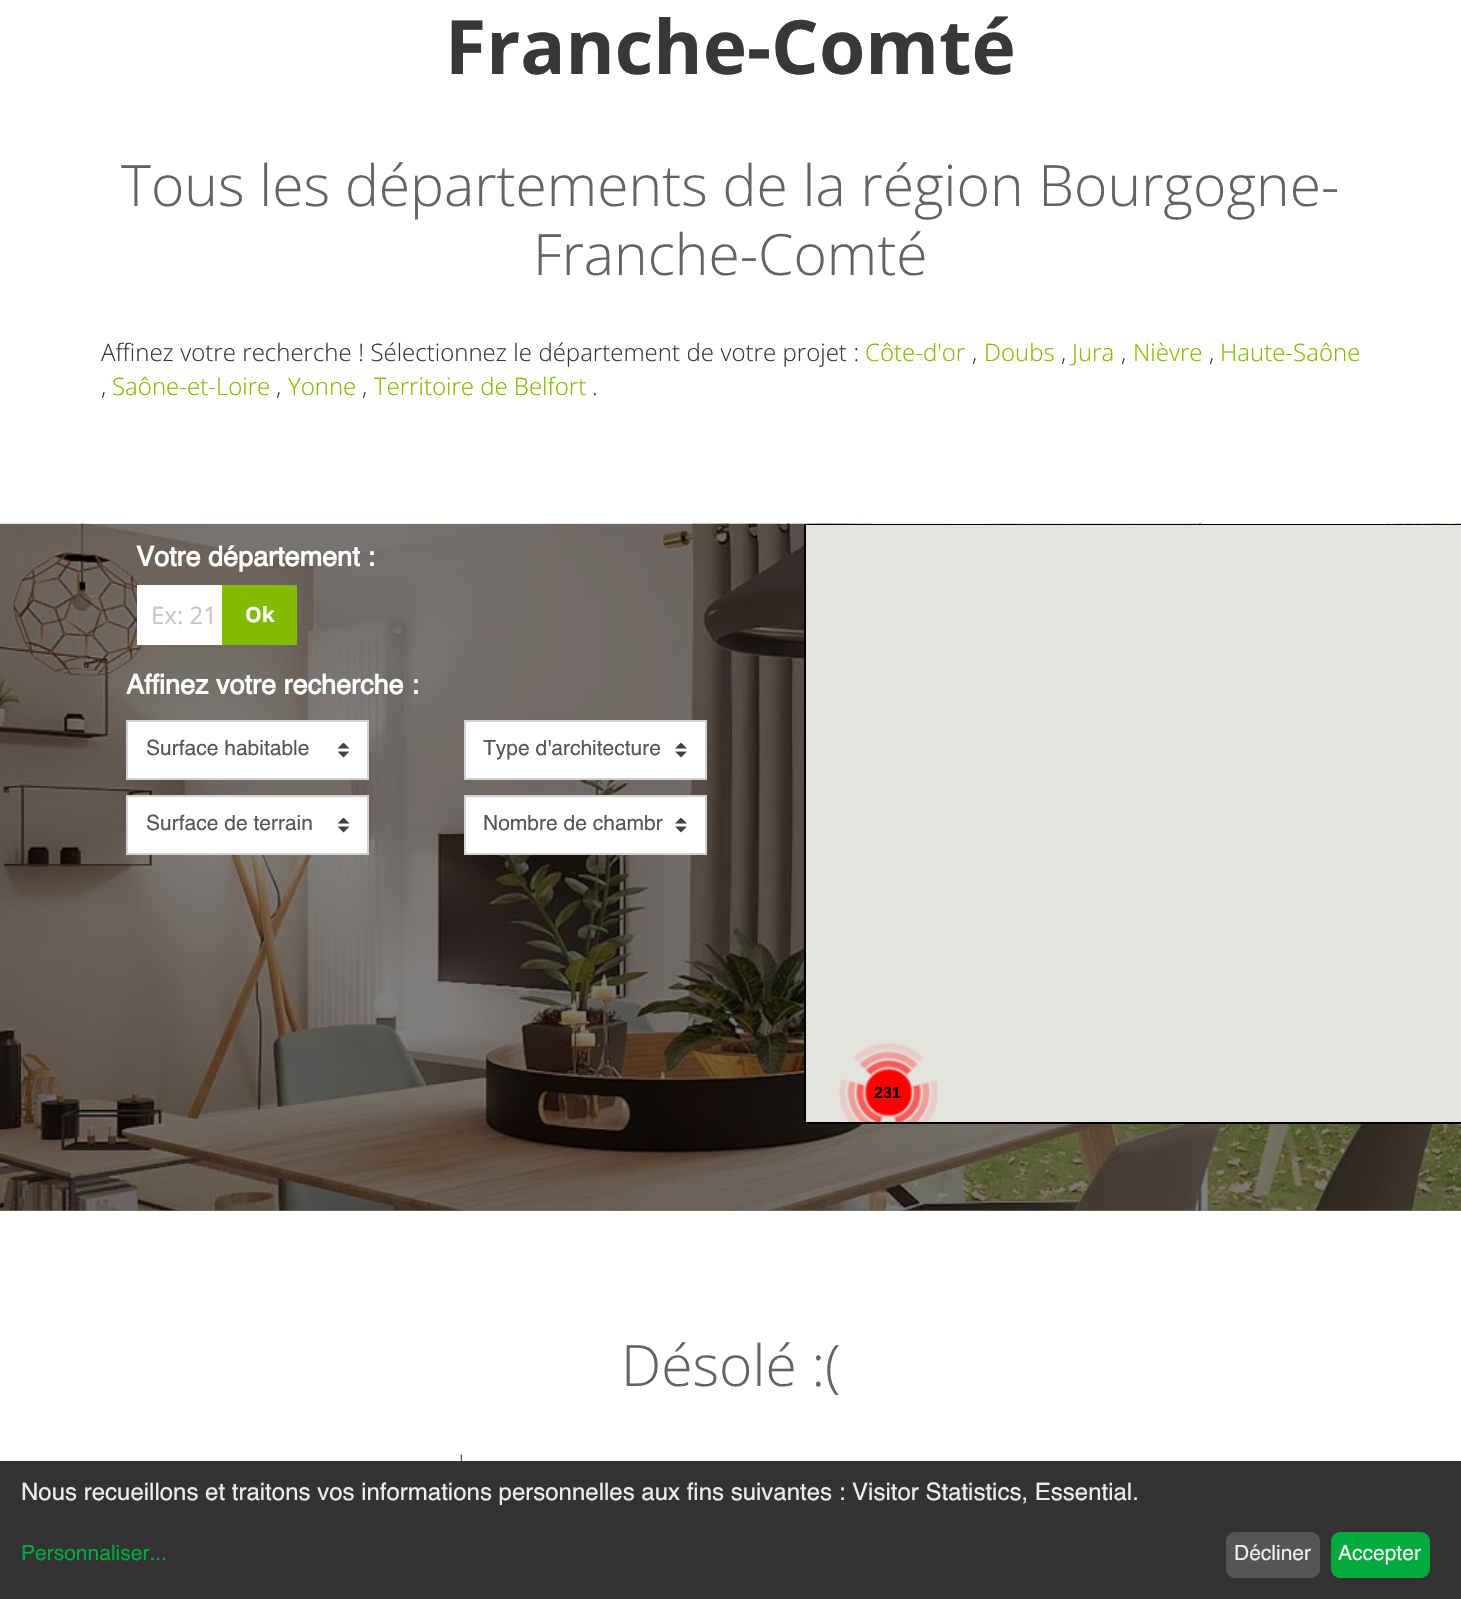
void draw(SkCanvas* c) {
SkPaint p;
p.setAntiAlias(true);
auto F=[&](const char* family, int weight, float size, bool italic = false){SkFontStyle style(weight, SkFontStyle::kNormal_Width,italic ? SkFontStyle::kItalic_Slant : SkFontStyle::kUpright_Slant);SkFont result(fontMgr->matchFamilyStyle(family, style), size);result.setSubpixel(true);return result;};
auto T=[&](const char* s, float x, float y, const SkFont& font){c->drawString(s, x, y, font, p);};
auto L=[&](const char* s, float x, float y, const SkFont& font, const SkPaint& ink, float letter, float word){std::vector<SkGlyphID> glyphs(font.countText(s, strlen(s), SkTextEncoding::kUTF8));std::vector<float> xs(glyphs.size());font.textToGlyphs(s, strlen(s), SkTextEncoding::kUTF8, glyphs);font.getXPos(glyphs, xs, x);float extra = 0;for (size_t i = 0; i < glyphs.size(); i++) {xs[i] += extra;extra += letter + word * (glyphs[i] == font.unicharToGlyph(' '));}c->drawTextBlob(SkTextBlob::MakeFromPosHGlyphs(glyphs, xs, y, font), 0, 0, ink);};
auto R=[&](float x, float y, float w, float h){c->drawRect(SkRect::MakeXYWH(x, y, w, h), p);};
auto Q=[&](float x, float y, float w, float h, float radius){c->drawRoundRect(SkRect::MakeXYWH(x, y, w, h), radius, radius, p);};
auto I=[&](const char* path, float x, float y, float w, float h){auto image = SkImages::DeferredFromEncodedData(SkData::MakeFromFileName(path));c->drawImageRect(image, SkRect::MakeXYWH(x, y, w, h), SkSamplingOptions());};
c->clear(0xffffffff);
p.setColor(0xff808080);
R(0,1210,1461,1);
auto f1 = F("Open Sans",700,75);
p.setColor(0xff383838);
T("Franche-Comté",445,74,f1);
auto f2 = F("Open Sans",300,57);
p.setColor(0xff636363);
T("Tous les départements de la région Bourgogne-",121,206,f2);
T("Franche-Comté",533,275,f2);
auto f3 = F("Open Sans",300,24);
p.setColor(0xff383838);
L("Affinez votre recherche ! Sélectionnez le département de votre projet :",101,361,f3,p,0,.25);
p.setColor(0xff81bc01);
T("Côte-d'or",865,361,f3);
p.setColor(0xff383838);
T(",",972,361,f3);
p.setColor(0xff81bc01);
T("Doubs",984,361,f3);
p.setColor(0xff383838);
T(",",1061,361,f3);
p.setColor(0xff81bc01);
T("Jura",1072,361,f3);
p.setColor(0xff383838);
T(",",1121,361,f3);
p.setColor(0xff81bc01);
T("Nièvre",1133,361,f3);
p.setColor(0xff383838);
T(",",1209,361,f3);
p.setColor(0xff81bc01);
T("Haute-Saône",1220,361,f3);
p.setColor(0xff383838);
T(",",101,395,f3);
p.setColor(0xff81bc01);
T("Saône-et-Loire",112,395,f3);
p.setColor(0xff383838);
T(",",276,395,f3);
p.setColor(0xff81bc01);
T("Yonne",288,395,f3);
p.setColor(0xff383838);
T(",",362,395,f3);
p.setColor(0xff81bc01);
T("Territoire de Belfort",374,395,f3);
p.setColor(0xff383838);
T(".",592,395,f3);
I("1.png",0,523,1461,688);
auto f4 = F("Helvetica",700,27);
p.setColor(0xffffffff);
T("Votre département :",136,566,f4);
R(137,585,85,60);
auto f5 = F("Open Sans",400,24);
p.setColor(0xffc5c5c5);
T("Ex: 21",151,624,f5);
p.setColor(0xff81bc01);
R(222,585,75,60);
auto f6 = F("Open Sans",700,21);
p.setColor(0xffffffff);
T("Ok",245,622,f6);
T("Affinez votre recherche :",126,694,f4);
R(128,722,239,56);
I("2.png",338,743,12,15);
p.setStroke(true);
p.setStrokeWidth(2);
p.setColor(0xffd1d1d1);
c->drawRect(SkRect::MakeXYWH(127,721,241,58),p);
auto f7 = F("Helvetica",400,21);
p.setStroke(false);
p.setColor(0xff555555);
T("Surface habitable",146,755,f7);
p.setColor(0xffffffff);
R(128,797,239,56);
I("2.png",338,818,12,15);
p.setStroke(true);
p.setColor(0xffd1d1d1);
c->drawRect(SkRect::MakeXYWH(127,796,241,58),p);
p.setStroke(false);
p.setColor(0xff555555);
T("Surface de terrain",146,830,f7);
p.setColor(0xffffffff);
R(466,722,239,56);
I("3.png",675,743,12,15);
p.setStroke(true);
p.setColor(0xffd1d1d1);
c->drawRect(SkRect::MakeXYWH(465,721,241,58),p);
p.setStroke(false);
p.setColor(0xff555555);
T("Type d'architecture",483,755,f7);
p.setColor(0xffffffff);
R(466,797,239,56);
I("3.png",675,818,12,15);
p.setStroke(true);
p.setColor(0xffd1d1d1);
c->drawRect(SkRect::MakeXYWH(465,796,241,58),p);
p.setStroke(false);
p.setColor(0xff555555);
T("Nombre de chambr",483,830,f7);
p.setColor(0xff000000);
R(804,524,657,600);
p.setColor(0xffe5e3df);
R(806,525,655,597);
I("4.png",839,1042,99,80);
auto f8 = F("Liberation Sans",700,16);
p.setColor(0xff000000);
T("231",874,1098,f8);
p.setColor(0xff636363);
T("Désolé :(",621,1386,f2);
p.setColor(0xff383838);
T("'",459,1472,f3);
p.setColor(0xff333333);
R(0,1461,1461,138);
auto f9 = F("Helvetica",400,24);
p.setColor(0xffeeeeee);
T("Nous recueillons et traitons vos informations personnelles aux fins suivantes : Visitor Statistics, Essential.",21,1500,f9);
p.setColor(0xff00aa3e);
T("Personnaliser...",21,1560,f7);
p.setColor(0xff555555);
Q(1226,1532,94,46,9);
p.setColor(0xffeeeeee);
T("Décliner",1234,1560,f7);
p.setColor(0xff00aa3e);
Q(1331,1532,99,46,9);
p.setColor(0xffeeeeee);
T("Accepter",1338,1560,f7);
}
